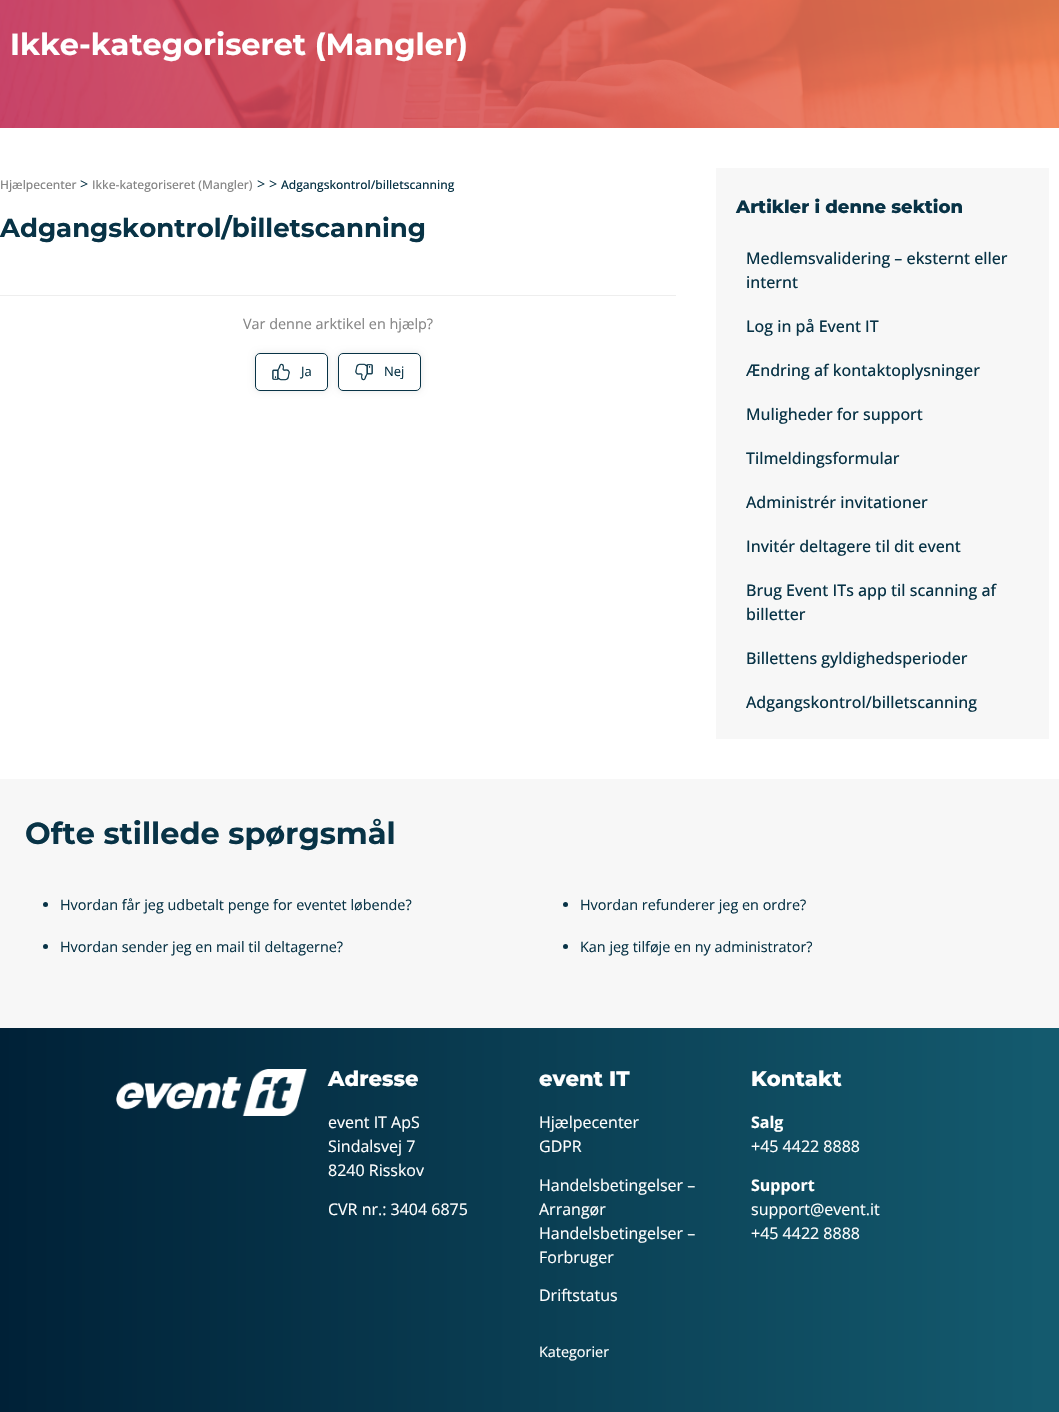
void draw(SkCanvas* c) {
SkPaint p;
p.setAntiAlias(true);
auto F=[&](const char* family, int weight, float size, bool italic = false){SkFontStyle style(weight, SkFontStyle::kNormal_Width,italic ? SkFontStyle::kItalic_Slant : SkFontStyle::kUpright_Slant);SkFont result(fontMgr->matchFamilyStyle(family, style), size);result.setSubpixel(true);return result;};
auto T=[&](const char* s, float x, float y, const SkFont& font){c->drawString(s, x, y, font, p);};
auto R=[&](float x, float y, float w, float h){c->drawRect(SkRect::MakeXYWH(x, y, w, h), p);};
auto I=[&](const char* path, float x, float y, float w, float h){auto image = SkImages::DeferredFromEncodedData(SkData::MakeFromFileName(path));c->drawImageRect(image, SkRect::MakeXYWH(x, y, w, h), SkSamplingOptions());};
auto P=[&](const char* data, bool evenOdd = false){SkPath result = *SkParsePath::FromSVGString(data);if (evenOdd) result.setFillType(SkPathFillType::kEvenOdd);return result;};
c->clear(0xffffffff);
I("1.png",0,0,1059,128);
auto f1 = F("Montserrat",700,30.4);
p.setColor(0xffffffff);
T("Ikke-kategoriseret (Mangler)",10,55,f1);
auto f2 = F("Open Sans",500,12);
p.setColor(0xff858585);
T("Hjælpecenter",0,189,f2);
auto f3 = F("Open Sans",400,14.4);
p.setColor(0xff083346);
T(">",80,189,f3);
p.setColor(0xff858585);
T("Ikke-kategoriseret (Mangler)",92,189,f2);
p.setColor(0xff083346);
T("> >",257,189,f3);
T("Adgangskontrol/billetscanning",281,189,f2);
auto f4 = F("Montserrat",700,26);
T("Adgangskontrol/billetscanning",0,237,f4);
p.setColor(0xffeeeeee);
R(0,295,676,1);
p.setColor(0xff858585);
T("Var denne arktikel en hjælp?",243,329,f3);
c->save();
c->clipPath(P("M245 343h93v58h-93zm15 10h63c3 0 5 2 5 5v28c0 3-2 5-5 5h-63c-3 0-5-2-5-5v-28c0-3 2-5 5-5z",true),true);
p.setColor(0x1a000000);
p.setMaskFilter(SkMaskFilter::MakeBlur(kNormal_SkBlurStyle, 3));
c->drawRoundRect(SkRect::MakeXYWH(255,353,73,38),5,5,p);
p.setMaskFilter(nullptr);
c->restore();
I("2.png",272,363,18,18);
p.setStroke(true);
p.setStrokeWidth(1);
p.setColor(0xff083346);
c->drawRoundRect(SkRect::MakeXYWH(255.5,353.5,72,37),4.5,4.5,p);
auto f5 = F("Open Sans",400,13);
p.setStroke(false);
T("Ja",301,376,f5);
c->save();
c->clipPath(P("M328 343h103v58h-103zm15 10h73c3 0 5 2 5 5v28c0 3-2 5-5 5h-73c-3 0-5-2-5-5v-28c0-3 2-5 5-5z",true),true);
p.setColor(0x1a000000);
p.setMaskFilter(SkMaskFilter::MakeBlur(kNormal_SkBlurStyle, 3));
c->drawRoundRect(SkRect::MakeXYWH(338,353,83,38),5,5,p);
p.setMaskFilter(nullptr);
c->restore();
I("3.png",355,363,18,18);
p.setStroke(true);
p.setColor(0xff083346);
c->drawRoundRect(SkRect::MakeXYWH(338.5,353.5,82,37),4.5,4.5,p);
p.setStroke(false);
T("Nej",384,376,f5);
p.setColor(0xfff7f7f7);
R(716,168,333,571);
auto f6 = F("Montserrat",800,18);
p.setColor(0xff083346);
T("Artikler i denne sektion",736,213,f6);
auto f7 = F("Open Sans",500,16);
T("Medlemsvalidering – eksternt eller",746,264,f7);
T("internt",746,288,f7);
T("Log in på Event IT",746,332,f7);
T("Ændring af kontaktoplysninger",746,376,f7);
T("Muligheder for support",746,420,f7);
T("Tilmeldingsformular",746,464,f7);
T("Administrér invitationer",746,508,f7);
T("Invitér deltagere til dit event",746,552,f7);
T("Brug Event ITs app til scanning af",746,596,f7);
T("billetter",746,620,f7);
T("Billettens gyldighedsperioder",746,664,f7);
T("Adgangskontrol/billetscanning",746,708,f7);
p.setColor(0xfff7f7f7);
R(0,779,1059,249);
p.setColor(0xff083346);
T("Ofte stillede spørgsmål",25,844,f1);
c->drawCircle(45.5,904.5,2.5,p);
T("Hvordan får jeg udbetalt penge for eventet løbende?",60,910,f3);
c->drawCircle(45.5,946.5,2.5,p);
T("Hvordan sender jeg en mail til deltagerne?",60,952,f3);
c->drawCircle(565.5,904.5,2.5,p);
T("Hvordan refunderer jeg en ordre?",580,910,f3);
c->drawCircle(565.5,946.5,2.5,p);
T("Kan jeg tilføje en ny administrator?",580,952,f3);
{
const SkColor colors[] = {0xff002137,0xff145b6f};
const float stops[] = {0,1};
const SkPoint ends[] = {{0,1224}, {1059,1224}};
p.setShader(SkGradientShader::MakeLinear(ends, colors, stops, 2, SkTileMode::kClamp));
p.setAlpha(255);
}
R(0,1028,1059,384);
I("4.png",116,1069,191,47);
auto f8 = F("Montserrat",800,21);
p.setShader(nullptr);
p.setColor(0xffffffff);
T("Adresse",328,1086,f8);
auto f9 = F("Open Sans",400,16);
T("event IT ApS",328,1128,f9);
T("Sindalsvej 7",328,1152,f9);
T("8240 Risskov",328,1176,f9);
T("CVR nr.: 3404 6875",328,1215,f9);
T("event IT",539,1086,f8);
T("Hjælpecenter",539,1128,f9);
T("GDPR",539,1152,f9);
T("Handelsbetingelser –",539,1191,f9);
T("Arrangør",539,1215,f9);
T("Handelsbetingelser –",539,1239,f9);
T("Forbruger",539,1263,f9);
T("Driftstatus",539,1301,f9);
T("Kategorier",539,1357,f3);
T("Kontakt",751,1086,f8);
auto f10 = F("Open Sans",700,16);
T("Salg",751,1128,f10);
T("+45 4422 8888",751,1152,f9);
T("Support",751,1191,f10);
T("support@event.it",751,1215,f9);
T("+45 4422 8888",751,1239,f9);
}
